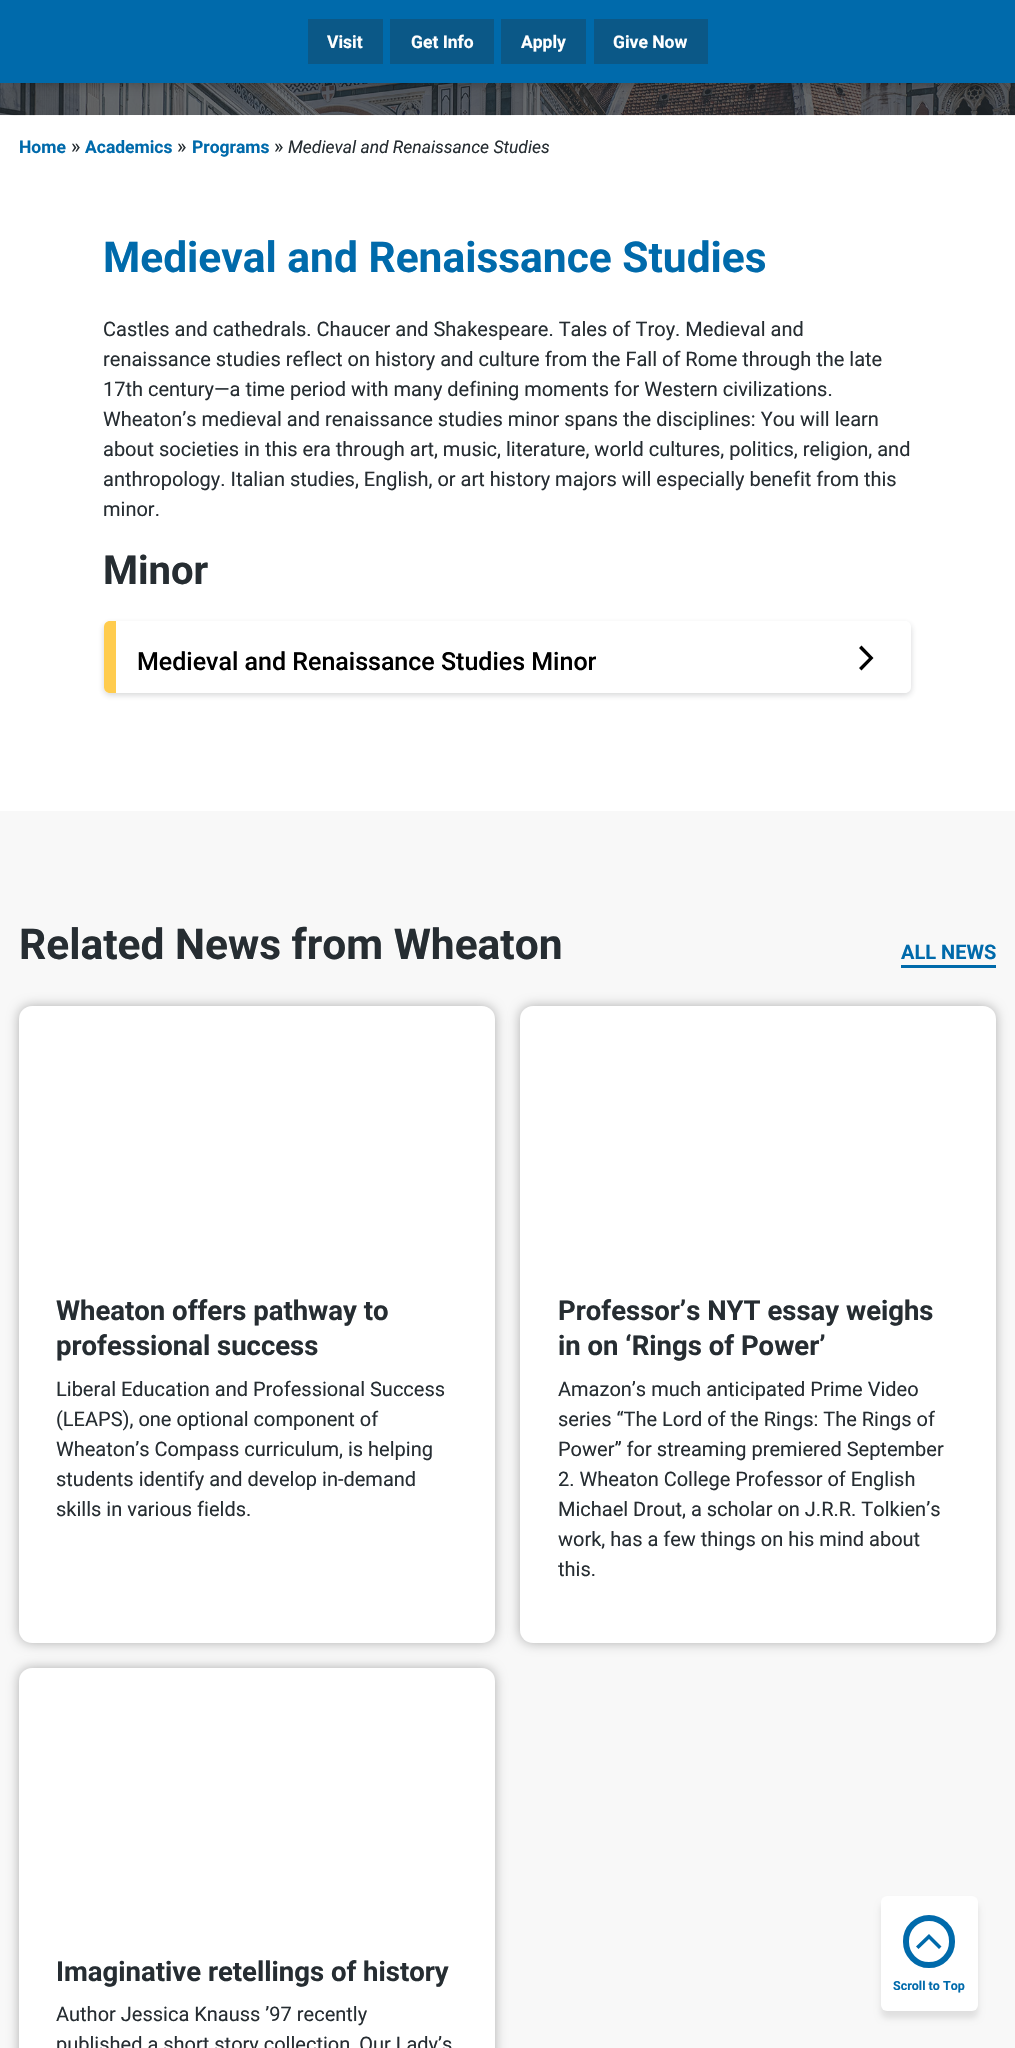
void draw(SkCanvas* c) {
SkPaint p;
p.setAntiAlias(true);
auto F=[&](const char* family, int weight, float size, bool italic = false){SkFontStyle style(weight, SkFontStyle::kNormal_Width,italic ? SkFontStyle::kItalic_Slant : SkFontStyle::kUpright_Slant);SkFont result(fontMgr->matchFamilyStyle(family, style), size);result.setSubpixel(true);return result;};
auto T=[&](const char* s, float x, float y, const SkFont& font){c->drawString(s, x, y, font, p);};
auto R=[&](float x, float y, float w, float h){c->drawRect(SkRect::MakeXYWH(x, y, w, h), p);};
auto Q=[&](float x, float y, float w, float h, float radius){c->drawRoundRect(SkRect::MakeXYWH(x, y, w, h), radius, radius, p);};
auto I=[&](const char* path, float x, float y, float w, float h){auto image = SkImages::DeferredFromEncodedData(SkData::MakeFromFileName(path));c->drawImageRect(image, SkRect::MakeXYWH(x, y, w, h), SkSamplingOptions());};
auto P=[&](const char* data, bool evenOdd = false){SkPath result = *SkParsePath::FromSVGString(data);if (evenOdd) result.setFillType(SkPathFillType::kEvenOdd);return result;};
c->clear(0xffffffff);
I("1.png",0,83,1015,33);
p.setColor(0x4d000000);
p.setMaskFilter(SkMaskFilter::MakeBlur(kNormal_SkBlurStyle, 6));
c->drawRect(SkRect::MakeXYWH(19,38,977,45),p);
p.setMaskFilter(nullptr);
p.setColor(0xff006aab);
R(0,0,1015,83);
p.setColor(0xff0b5887);
R(308,19,75,45);
auto f1 = F("Roboto",700,17.5);
p.setColor(0xffffffff);
T("Visit",327,48,f1);
p.setColor(0xff0b5887);
R(390,19,104,45);
p.setColor(0xffffffff);
T("Get Info",411,48,f1);
p.setColor(0xff0b5887);
R(501,19,85,45);
p.setColor(0xffffffff);
T("Apply",521,48,f1);
p.setColor(0xff0b5887);
R(594,19,114,45);
p.setColor(0xffffffff);
T("Give Now",613,48,f1);
p.setColor(0xff006aab);
T("Home",19,153,f1);
auto f2 = F("Roboto",400,20);
p.setColor(0xff262d32);
T("»",71,153,f2);
p.setColor(0xff006aab);
T("Academics",85,153,f1);
p.setColor(0xff262d32);
T("»",177,153,f2);
p.setColor(0xff006aab);
T("Programs",192,153,f1);
p.setColor(0xff262d32);
T("»",274,153,f2);
auto f3 = F("Roboto",400,17.5,true);
T("Medieval and Renaissance Studies",288,153,f3);
auto f4 = F("Roboto",700,42.5);
p.setColor(0xff006aab);
T("Medieval and Renaissance Studies",103,272,f4);
p.setColor(0xff262d32);
T("Castles and cathedrals. Chaucer and Shakespeare. Tales of Troy. Medieval and",103,336,f2);
T("renaissance studies reflect on history and culture from the Fall of Rome through the late",103,366,f2);
T("17th century—a time period with many defining moments for Western civilizations.",103,396,f2);
T("Wheaton’s medieval and renaissance studies minor spans the disciplines: You will learn",103,426,f2);
T("about societies in this era through art, music, literature, world cultures, politics, religion, and",103,456,f2);
T("anthropology. Italian studies, English, or art history majors will especially benefit from this",103,486,f2);
T("minor.",103,516,f2);
auto f5 = F("Roboto",700,40);
T("Minor",103,584,f5);
c->save();
c->clipPath(P("M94 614h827v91h-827zm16 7h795c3.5 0 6 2.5 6 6v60c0 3.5-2.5 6-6 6h-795c-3.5 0-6-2.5-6-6v-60c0-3.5 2.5-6 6-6z",true),true);
p.setColor(0x33262d32);
p.setMaskFilter(SkMaskFilter::MakeBlur(kNormal_SkBlurStyle, 3));
c->drawRoundRect(SkRect::MakeXYWH(104,624,807,71),6,6,p);
p.setMaskFilter(nullptr);
c->restore();
p.setColor(0xffffcc4e);
c->drawPath(P("M110 621h6v72h-6c-3.5 0-6-2.5-6-6v-60c0-3.5 2.5-6 6-6z"),p);
auto f6 = F("Roboto",500,25);
p.setColor(0xff000000);
T("Medieval and Renaissance Studies Minor",137,670,f6);
c->drawPath(P("M859 668l10-10l-10-10l2.5-2.5l12 12.5l-12 12.5z"),p);
p.setColor(0xfff8f8f8);
R(0,811,1015,1237);
p.setColor(0xff262d32);
T("Related News from Wheaton",19,959,f4);
auto f7 = F("Roboto",700,20);
p.setColor(0xff006aab);
T("ALL NEWS",901,959,f7);
R(901,965,95,3);
p.setColor(0x4d000000);
p.setMaskFilter(SkMaskFilter::MakeBlur(kNormal_SkBlurStyle, 6));
c->drawRoundRect(SkRect::MakeXYWH(19,1006,476,637),13,13,p);
p.setMaskFilter(nullptr);
p.setColor(0xffffffff);
Q(19,1006,476,637,13);
auto f8 = F("Roboto",700,27.5);
p.setColor(0xff262d32);
T("Wheaton offers pathway to",56,1320,f8);
T("professional success",56,1355,f8);
T("Liberal Education and Professional Success",56,1396,f2);
T("(LEAPS), one optional component of",56,1426,f2);
T("Wheaton’s Compass curriculum, is helping",56,1456,f2);
T("students identify and develop in-demand",56,1486,f2);
T("skills in various fields.",56,1516,f2);
p.setColor(0x4d000000);
p.setMaskFilter(SkMaskFilter::MakeBlur(kNormal_SkBlurStyle, 6));
c->drawRoundRect(SkRect::MakeXYWH(520,1006,476,637),13,13,p);
p.setMaskFilter(nullptr);
p.setColor(0xffffffff);
Q(520,1006,476,637,13);
p.setColor(0xff262d32);
T("Professor’s NYT essay weighs",558,1320,f8);
T("in on ‘Rings of Power’",558,1355,f8);
T("Amazon’s much anticipated Prime Video",558,1396,f2);
T("series “The Lord of the Rings: The Rings of",558,1426,f2);
T("Power” for streaming premiered September",558,1456,f2);
T("2. Wheaton College Professor of English",558,1486,f2);
T("Michael Drout, a scholar on J.R.R. Tolkien’s",558,1516,f2);
T("work, has a few things on his mind about",558,1546,f2);
T("this.",558,1576,f2);
p.setColor(0x4d000000);
p.setMaskFilter(SkMaskFilter::MakeBlur(kNormal_SkBlurStyle, 6));
c->drawRoundRect(SkRect::MakeXYWH(19,1668,476,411),13,13,p);
p.setMaskFilter(nullptr);
p.setColor(0xffffffff);
Q(19,1668,476,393,13);
p.setColor(0xff262d32);
T("Imaginative retellings of history",56,1981,f8);
T("Author Jessica Knauss ’97 recently",56,2021,f2);
T("published a short story collection, Our Lady’s",56,2051,f2);
p.setColor(0x1a000000);
p.setMaskFilter(SkMaskFilter::MakeBlur(kNormal_SkBlurStyle, 3));
c->drawRoundRect(SkRect::MakeXYWH(881,1903,97,115),6,6,p);
p.setMaskFilter(nullptr);
p.setColor(0xffffffff);
Q(881,1896,97,115,6);
p.setStroke(true);
p.setStrokeWidth(6);
p.setColor(0xff006aab);
c->drawRoundRect(SkRect::MakeXYWH(906,1918,46,47),23,23,p);
p.setStroke(false);
c->drawPath(P("M939 1949l-10-10l-10.5 10l-2.5-2.5l13-12.5l12.5 12.5z"),p);
auto f9 = F("Roboto",700,12.5);
T("Scroll to Top",893,1990,f9);
}
